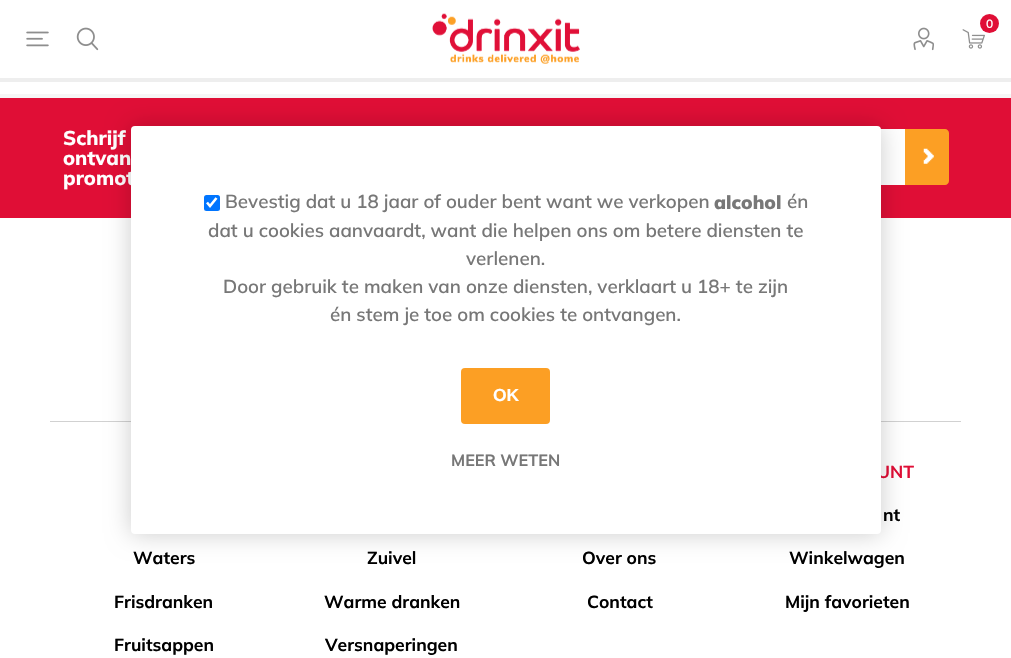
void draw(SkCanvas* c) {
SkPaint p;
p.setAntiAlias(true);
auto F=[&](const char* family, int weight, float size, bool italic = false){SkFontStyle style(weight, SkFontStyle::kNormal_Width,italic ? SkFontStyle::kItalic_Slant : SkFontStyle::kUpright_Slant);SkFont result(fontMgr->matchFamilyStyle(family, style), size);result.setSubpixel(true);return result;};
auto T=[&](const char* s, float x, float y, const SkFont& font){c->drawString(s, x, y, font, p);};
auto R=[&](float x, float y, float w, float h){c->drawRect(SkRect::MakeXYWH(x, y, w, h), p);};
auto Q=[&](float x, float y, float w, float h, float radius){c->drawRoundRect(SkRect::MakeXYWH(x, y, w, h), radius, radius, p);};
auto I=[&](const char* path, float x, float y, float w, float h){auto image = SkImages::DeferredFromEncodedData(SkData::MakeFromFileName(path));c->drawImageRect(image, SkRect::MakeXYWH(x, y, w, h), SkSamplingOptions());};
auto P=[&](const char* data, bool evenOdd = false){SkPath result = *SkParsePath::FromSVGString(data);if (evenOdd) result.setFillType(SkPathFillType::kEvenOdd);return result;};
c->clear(0xffffffff);
p.setColor(0xffeeeeee);
R(0,78,1011,4);
I("1.png",432,13,148,51);
I("2.png",962,29,23,20);
p.setColor(0xffe00e36);
c->drawCircle(989.5,23.5,9.5,p);
auto f1 = F("Mulish",600,12);
p.setColor(0xffffffff);
T("0",986,28,f1);
I("3.png",26,31,23,16);
I("4.png",76,27,23,24);
I("5.png",913,27,21,24);
p.setColor(0xfff6f6f6);
R(0,94,1011,4);
p.setColor(0xffe00e36);
R(0,98,1011,120);
auto f2 = F("Mulish",800,20);
p.setColor(0xffffffff);
T("Schrijf",63,145,f2);
T("ontvan",63,165,f2);
T("promot",63,185,f2);
R(881,130,23,54);
p.setStroke(true);
p.setStrokeWidth(1);
c->drawRect(SkRect::MakeXYWH(443.5,129.5,461,55),p);
p.setStroke(false);
p.setColor(0xfffc9f24);
c->drawPath(P("M905 129h40c2 0 4 2 4 4v48c0 2-2 4-4 4h-40z"),p);
I("6.png",923,148,11,16);
p.setColor(0xffd1d1d1);
R(50,421,911,1);
auto f3 = F("Mulish",700,17.5);
p.setColor(0xff000000);
T("Waters",133,564,f3);
T("Frisdranken",114,608,f3);
T("Fruitsappen",114,651,f3);
T("Zuivel",367,564,f3);
T("Warme dranken",324,608,f3);
T("Versnaperingen",325,651,f3);
T("Over ons",582,564,f3);
T("Contact",587,608,f3);
p.setColor(0xffe00e36);
T("UNT",877,478,f3);
p.setColor(0xff000000);
T("nt",883,521,f3);
T("Winkelwagen",789,564,f3);
T("Mijn favorieten",785,608,f3);
p.setColor(0x33000000);
p.setMaskFilter(SkMaskFilter::MakeBlur(kNormal_SkBlurStyle, 12.5));
c->drawRoundRect(SkRect::MakeXYWH(131,126,750,408),4,4,p);
p.setMaskFilter(nullptr);
p.setColor(0xffffffff);
Q(131,126,750,408,4);
p.setColor(0xff0075ff);
Q(204,195,16,16,2.5);
p.setStroke(true);
p.setStrokeWidth(2.6);
p.setColor(0xffffffff);
c->drawPath(P("M207 202.5l3 3.5l6.5-8"),p);
auto f4 = F("Mulish",600,18.75);
p.setStroke(false);
p.setColor(0xff777777);
T("Bevestig dat u 18 jaar of ouder bent want we verkopen",225,208,f4);
auto f5 = F("Mulish",900,18.75);
T("alcohol",714,209,f5);
T("én",787,208,f4);
T("dat u cookies aanvaardt, want die helpen ons om betere diensten te",208,237,f4);
T("verlenen.",466,265,f4);
T("Door gebruik te maken van onze diensten, verklaart u 18+ te zijn",223,293,f4);
T("én stem je toe om cookies te ontvangen.",330,321,f4);
p.setColor(0xfffc9f24);
Q(461,368,89,56,4);
auto f6 = F("Liberation Sans",700,17.5);
p.setColor(0xffffffff);
T("OK",493,401,f6);
auto f7 = F("Mulish",700,16.25);
p.setColor(0xff777777);
T("MEER WETEN",451,466,f7);
}
